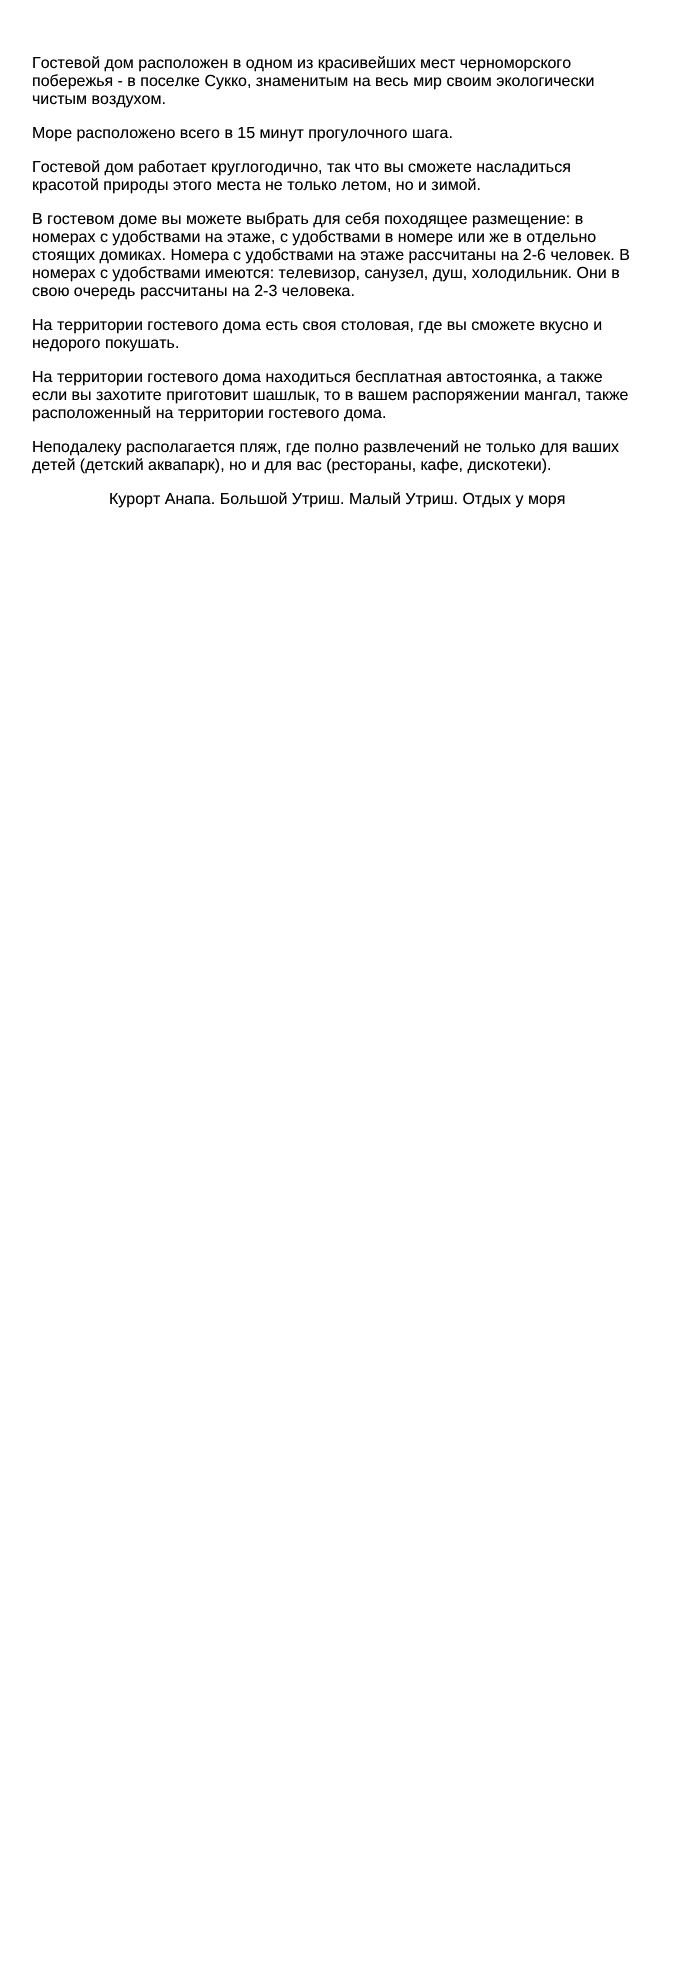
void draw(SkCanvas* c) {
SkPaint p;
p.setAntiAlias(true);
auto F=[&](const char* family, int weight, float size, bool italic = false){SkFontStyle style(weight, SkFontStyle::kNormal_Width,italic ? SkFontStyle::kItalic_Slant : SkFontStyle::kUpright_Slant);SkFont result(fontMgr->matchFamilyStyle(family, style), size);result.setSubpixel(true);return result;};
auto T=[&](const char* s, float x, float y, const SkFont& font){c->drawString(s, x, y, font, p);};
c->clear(0xffffffff);
auto f1 = F("Liberation Sans",400,16);
p.setColor(0xff000000);
T("Гостевой дом расположен в одном из красивейших мест черноморского",32,68,f1);
T("побережья - в поселке Сукко, знаменитым на весь мир своим экологически",32,86,f1);
T("чистым воздухом.",32,104,f1);
T("Море расположено всего в 15 минут прогулочного шага.",32,138,f1);
T("Гостевой дом работает круглогодично, так что вы сможете насладиться",32,172,f1);
T("красотой природы этого места не только летом, но и зимой.",32,190,f1);
T("В гостевом доме вы можете выбрать для себя походящее размещение: в",32,224,f1);
T("номерах с удобствами на этаже, с удобствами в номере или же в отдельно",32,242,f1);
T("стоящих домиках. Номера с удобствами на этаже рассчитаны на 2-6 человек. В",32,260,f1);
T("номерах с удобствами имеются: телевизор, санузел, душ, холодильник. Они в",32,278,f1);
T("свою очередь рассчитаны на 2-3 человека.",32,296,f1);
T("На территории гостевого дома есть своя столовая, где вы сможете вкусно и",32,330,f1);
T("недорого покушать.",32,348,f1);
T("На территории гостевого дома находиться бесплатная автостоянка, а также",32,382,f1);
T("если вы захотите приготовит шашлык, то в вашем распоряжении мангал, также",32,400,f1);
T("расположенный на территории гостевого дома.",32,418,f1);
T("Неподалеку располагается пляж, где полно развлечений не только для ваших",32,452,f1);
T("детей (детский аквапарк), но и для вас (рестораны, кафе, дискотеки).",32,470,f1);
T("Курорт Анапа. Большой Утриш. Малый Утриш. Отдых у моря",109,504,f1);
}
